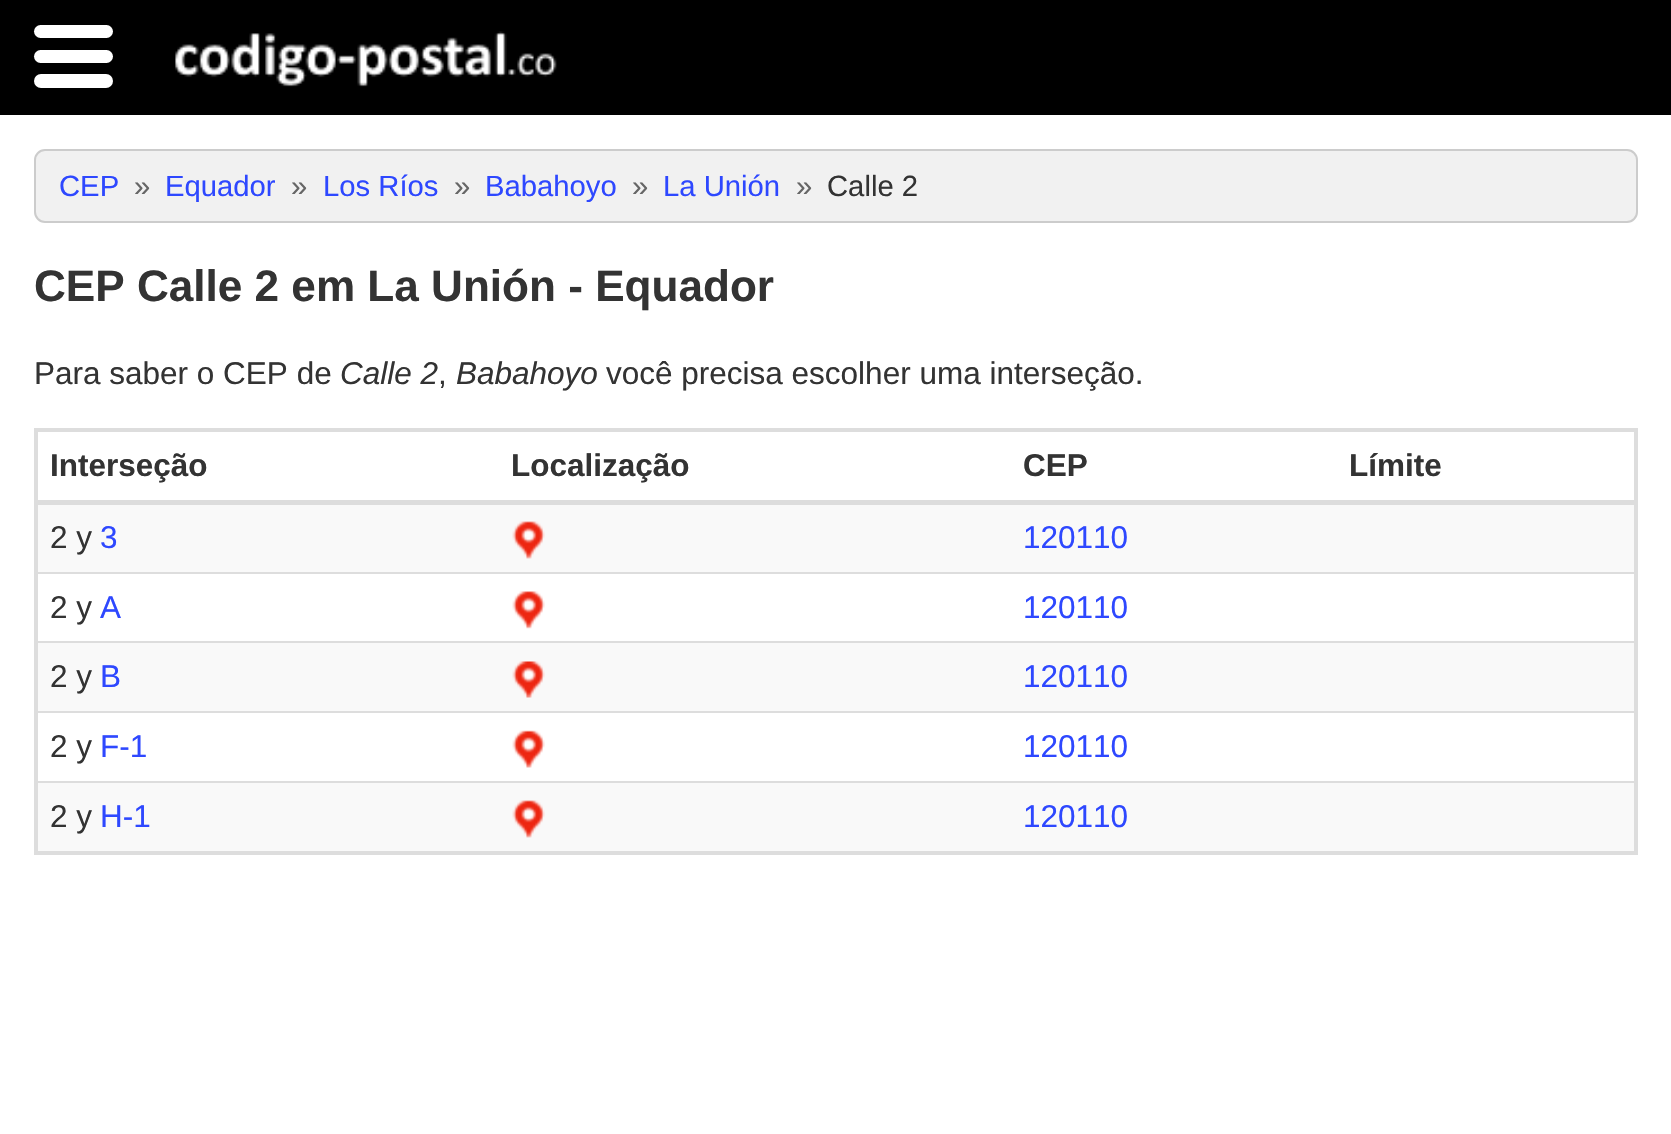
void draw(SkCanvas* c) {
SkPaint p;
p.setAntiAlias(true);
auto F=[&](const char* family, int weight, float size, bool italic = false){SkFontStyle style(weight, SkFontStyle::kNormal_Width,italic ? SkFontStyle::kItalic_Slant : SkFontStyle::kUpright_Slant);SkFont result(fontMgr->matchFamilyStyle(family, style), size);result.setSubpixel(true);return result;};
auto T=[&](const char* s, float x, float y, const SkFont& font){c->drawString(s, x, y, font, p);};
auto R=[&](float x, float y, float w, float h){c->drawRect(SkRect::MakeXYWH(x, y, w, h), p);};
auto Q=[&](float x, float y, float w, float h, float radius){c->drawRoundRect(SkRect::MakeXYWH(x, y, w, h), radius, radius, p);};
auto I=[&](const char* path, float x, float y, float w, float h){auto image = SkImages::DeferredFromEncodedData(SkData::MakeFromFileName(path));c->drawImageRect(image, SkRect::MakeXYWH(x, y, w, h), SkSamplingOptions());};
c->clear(0xffffffff);
p.setColor(0xff000000);
R(0,0,1671,115);
p.setColor(0xffffffff);
Q(34,25,79,13,6.5);
Q(34,50,79,13,6.5);
Q(34,74,79,14,7);
I("1.png",175,31,382,56);
p.setColor(0xfff1f1f1);
c->drawRoundRect(SkRect::MakeXYWH(35,150,1602,72),10,10,p);
p.setStroke(true);
p.setStrokeWidth(2);
p.setColor(0xffcccccc);
c->drawRoundRect(SkRect::MakeXYWH(35,150,1602,72),10,10,p);
auto f1 = F("Liberation Sans",400,29.25);
p.setStroke(false);
p.setColor(0xff2e48ff);
T("CEP",59,196,f1);
p.setColor(0xff666666);
T("»",134,196,f1);
p.setColor(0xff2e48ff);
T("Equador",165,196,f1);
p.setColor(0xff666666);
T("»",291,196,f1);
p.setColor(0xff2e48ff);
T("Los Ríos",323,196,f1);
p.setColor(0xff666666);
T("»",454,196,f1);
p.setColor(0xff2e48ff);
T("Babahoyo",485,196,f1);
p.setColor(0xff666666);
T("»",632,196,f1);
p.setColor(0xff2e48ff);
T("La Unión",663,196,f1);
p.setColor(0xff666666);
T("»",796,196,f1);
p.setColor(0xff333333);
T("Calle 2",827,196,f1);
auto f2 = F("Liberation Sans",700,44.1);
T("CEP Calle 2 em La Unión - Equador",34,301,f2);
auto f3 = F("Liberation Sans",400,31.5);
T("Para saber o CEP de",34,384,f3);
auto f4 = F("Liberation Sans",400,31.5,true);
T("Calle 2",340,384,f4);
T(",",438,384,f3);
T("Babahoyo",456,384,f4);
T("você precisa escolher uma interseção.",606,384,f3);
p.setStroke(true);
p.setColor(0xffdddddd);
c->drawRect(SkRect::MakeXYWH(35,429,1602,425),p);
p.setStroke(false);
R(36,430,1600,2);
R(1634,430,2,423);
R(36,851,1600,2);
R(36,430,2,423);
auto f5 = F("Liberation Sans",700,31.5);
p.setColor(0xff333333);
T("Interseção",50,476,f5);
T("Localização",511,476,f5);
T("CEP",1023,476,f5);
p.setColor(0xffdddddd);
R(36,500,1600,5);
p.setColor(0xff333333);
T("Límite",1349,476,f5);
p.setColor(0xfff9f9f9);
R(38,505,1596,67);
p.setColor(0xff333333);
T("2 y",50,548,f3);
p.setColor(0xff2e48ff);
T("3",100,548,f3);
I("2.png",512,521,33,38);
T("120110",1023,548,f3);
p.setColor(0xffdddddd);
R(36,572,1600,2);
p.setColor(0xff333333);
T("2 y",50,618,f3);
p.setColor(0xff2e48ff);
T("A",100,618,f3);
I("3.png",512,591,33,38);
T("120110",1023,618,f3);
p.setColor(0xfff9f9f9);
R(38,643,1596,68);
p.setColor(0xffdddddd);
R(36,641,1600,2);
p.setColor(0xff333333);
T("2 y",50,687,f3);
p.setColor(0xff2e48ff);
T("B",100,687,f3);
I("4.png",512,661,33,37);
T("120110",1023,687,f3);
p.setColor(0xffdddddd);
R(36,711,1600,2);
p.setColor(0xff333333);
T("2 y",50,757,f3);
p.setColor(0xff2e48ff);
T("F-1",100,757,f3);
I("5.png",512,730,33,38);
T("120110",1023,757,f3);
p.setColor(0xfff9f9f9);
R(38,783,1596,68);
p.setColor(0xffdddddd);
R(36,781,1600,2);
p.setColor(0xff333333);
T("2 y",50,827,f3);
p.setColor(0xff2e48ff);
T("H-1",100,827,f3);
I("2.png",512,800,33,38);
T("120110",1023,827,f3);
}
